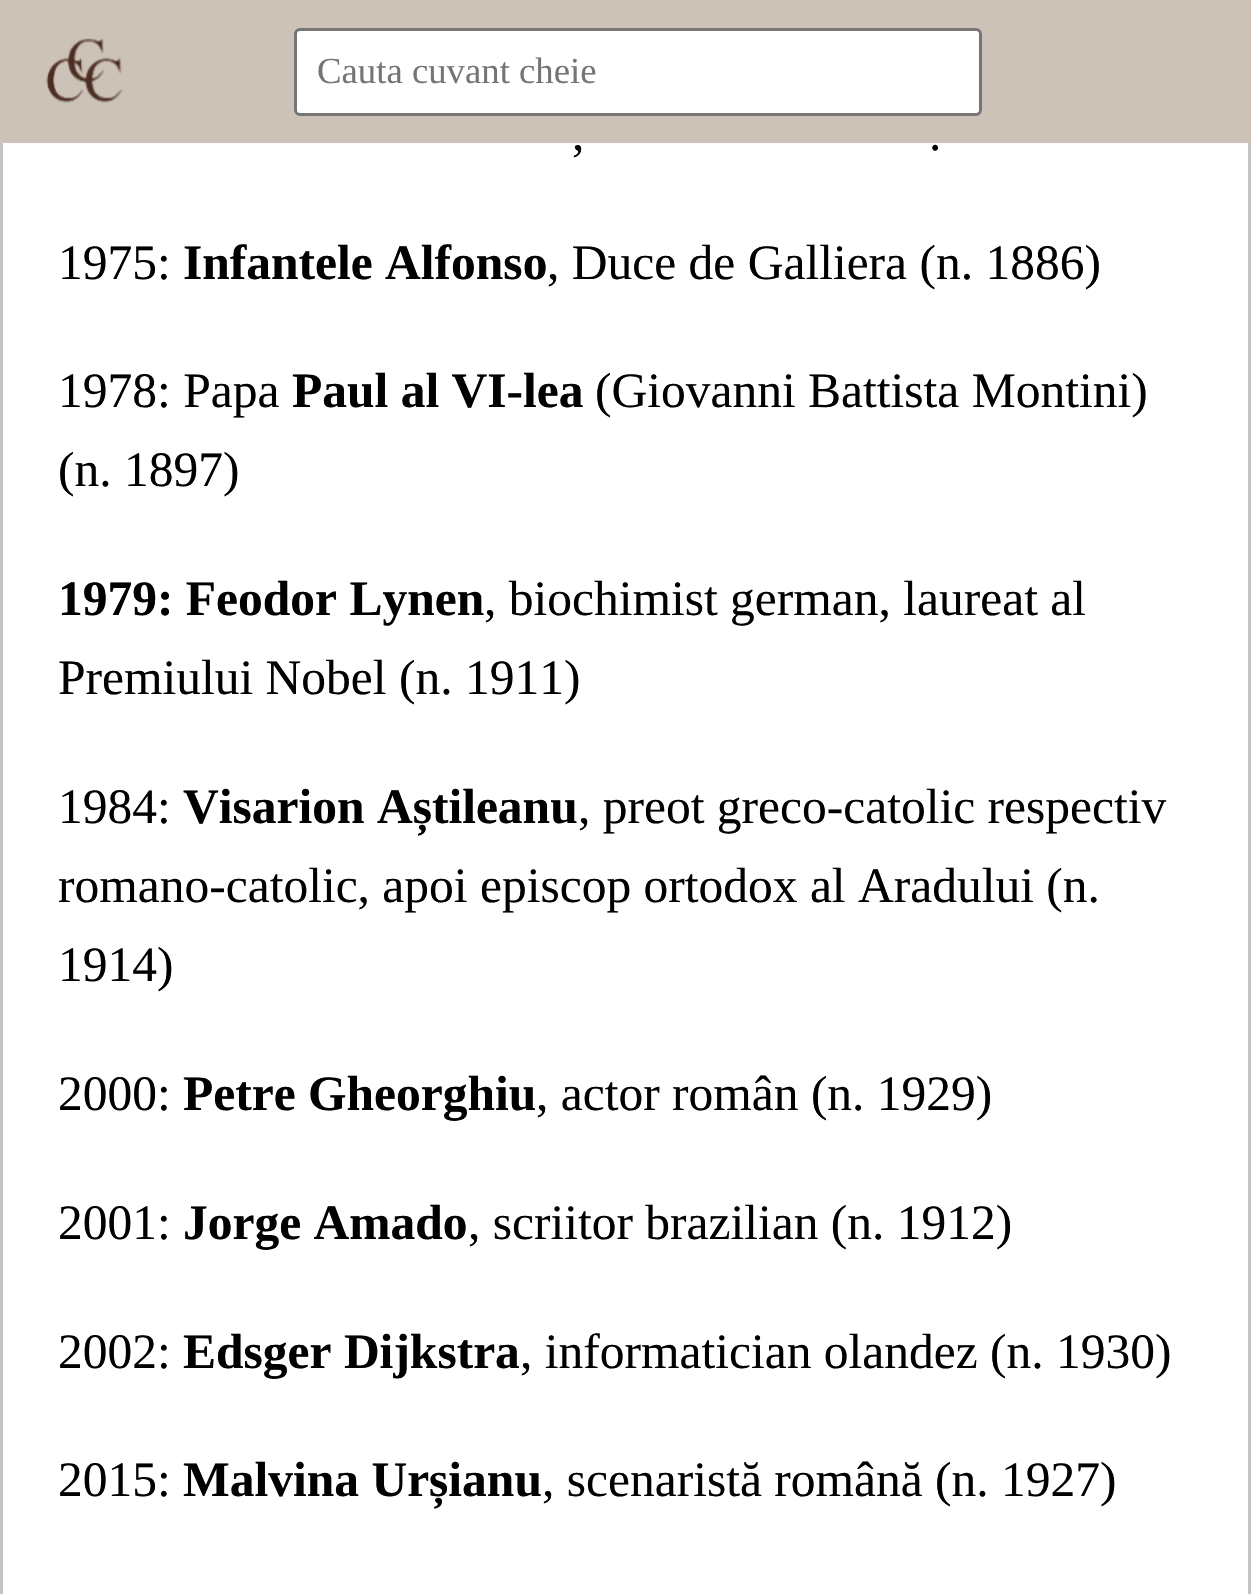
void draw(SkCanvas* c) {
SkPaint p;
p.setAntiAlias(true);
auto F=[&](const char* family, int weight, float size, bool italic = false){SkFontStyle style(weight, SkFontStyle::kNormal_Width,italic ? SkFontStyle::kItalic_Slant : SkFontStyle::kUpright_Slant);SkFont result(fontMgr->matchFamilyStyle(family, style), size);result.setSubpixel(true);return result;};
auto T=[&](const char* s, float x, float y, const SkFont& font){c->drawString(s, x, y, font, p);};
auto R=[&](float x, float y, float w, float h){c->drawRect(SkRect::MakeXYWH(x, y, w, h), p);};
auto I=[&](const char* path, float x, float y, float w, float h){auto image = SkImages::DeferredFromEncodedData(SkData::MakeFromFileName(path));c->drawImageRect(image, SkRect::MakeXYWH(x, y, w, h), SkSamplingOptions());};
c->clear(0xffffffff);
p.setStroke(true);
p.setStrokeWidth(3);
p.setColor(0xffc4c4c4);
c->drawRect(SkRect::MakeXYWH(1.5,-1.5,1248,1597),p);
p.setStroke(false);
p.setColor(0xffccc2b8);
R(0,0,1251,143);
I("1.png",46,38,77,65);
p.setColor(0xffffffff);
c->drawRoundRect(SkRect::MakeXYWH(295.5,29.5,685,85),4.5,4.5,p);
p.setStroke(true);
p.setColor(0xff767676);
c->drawRoundRect(SkRect::MakeXYWH(295.5,29.5,685,85),4.5,4.5,p);
auto f1 = F("Liberation Serif",400,36.75);
p.setStroke(false);
p.setColor(0xff757575);
T("Cauta cuvant cheie",317,83,f1);
auto f2 = F("Liberation Serif",400,49.5);
p.setColor(0xff000000);
T(",",572,150,f2);
T(".",929,150,f2);
T("1975:",58,279,f2);
auto f3 = F("Liberation Serif",700,49.5);
T("Infantele Alfonso",183,279,f3);
T(", Duce de Galliera (n. 1886)",547,279,f2);
T("1978: Papa",58,407,f2);
T("Paul al VI-lea",292,407,f3);
T("(Giovanni Battista Montini)",595,407,f2);
T("(n. 1897)",58,486,f2);
T("1979: Feodor Lynen",58,615,f3);
T(", biochimist german, laureat al",484,615,f2);
T("Premiului Nobel (n. 1911)",58,694,f2);
T("1984:",58,823,f2);
T("Visarion Aștileanu",183,823,f3);
T(", preot greco-catolic respectiv",578,823,f2);
T("romano-catolic, apoi episcop ortodox al Aradului (n.",58,902,f2);
T("1914)",58,981,f2);
T("2000:",58,1110,f2);
T("Petre Gheorghiu",183,1110,f3);
T(", actor român (n. 1929)",536,1110,f2);
T("2001:",58,1239,f2);
T("Jorge Amado",183,1239,f3);
T(", scriitor brazilian (n. 1912)",468,1239,f2);
T("2002:",58,1368,f2);
T("Edsger Dijkstra",183,1368,f3);
T(", informatician olandez (n. 1930)",520,1368,f2);
T("2015:",58,1496,f2);
T("Malvina Urșianu",183,1496,f3);
T(", scenaristă română (n. 1927)",542,1496,f2);
}
